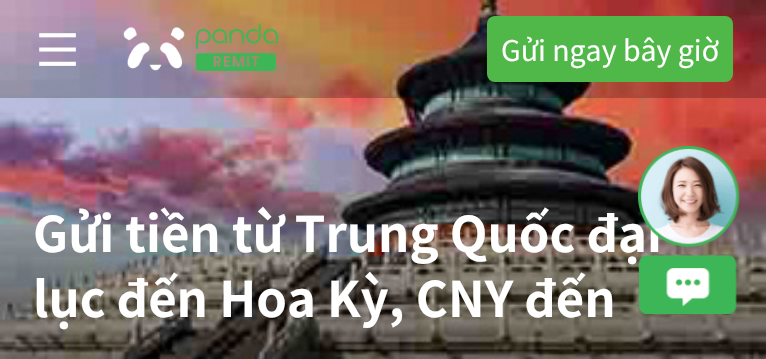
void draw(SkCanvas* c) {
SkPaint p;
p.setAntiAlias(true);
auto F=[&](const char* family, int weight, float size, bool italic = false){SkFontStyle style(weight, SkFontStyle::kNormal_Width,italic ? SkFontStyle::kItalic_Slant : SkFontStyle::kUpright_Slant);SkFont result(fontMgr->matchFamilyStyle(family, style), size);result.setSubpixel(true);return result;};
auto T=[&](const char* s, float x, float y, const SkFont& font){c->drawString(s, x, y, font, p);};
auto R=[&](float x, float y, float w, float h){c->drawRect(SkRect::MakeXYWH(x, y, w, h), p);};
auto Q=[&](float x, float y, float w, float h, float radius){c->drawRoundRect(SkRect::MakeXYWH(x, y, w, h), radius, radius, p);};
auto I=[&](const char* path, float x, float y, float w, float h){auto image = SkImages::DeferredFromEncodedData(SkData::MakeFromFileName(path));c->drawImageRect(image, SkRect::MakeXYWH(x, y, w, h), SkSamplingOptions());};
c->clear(0xffffffff);
I("1.png",0,0,766,359);
p.setColor(0x3d000000);
R(0,0,766,98);
I("2.png",39,33,37,33);
I("3.png",123,23,156,48);
p.setColor(0xff50b848);
Q(487,16,246,66,8);
auto f1 = F("Noto Sans CJK SC",400,28.5);
p.setColor(0xffffffff);
T("Gửi ngay bây giờ",501,61,f1);
auto f2 = F("Noto Sans CJK SC",700,49);
T("Gửi tiền từ Trung Quốc đại",33,252,f2);
T("lục đến Hoa Kỳ, CNY đến",33,317,f2);
I("4.png",638,146,102,169);
}
